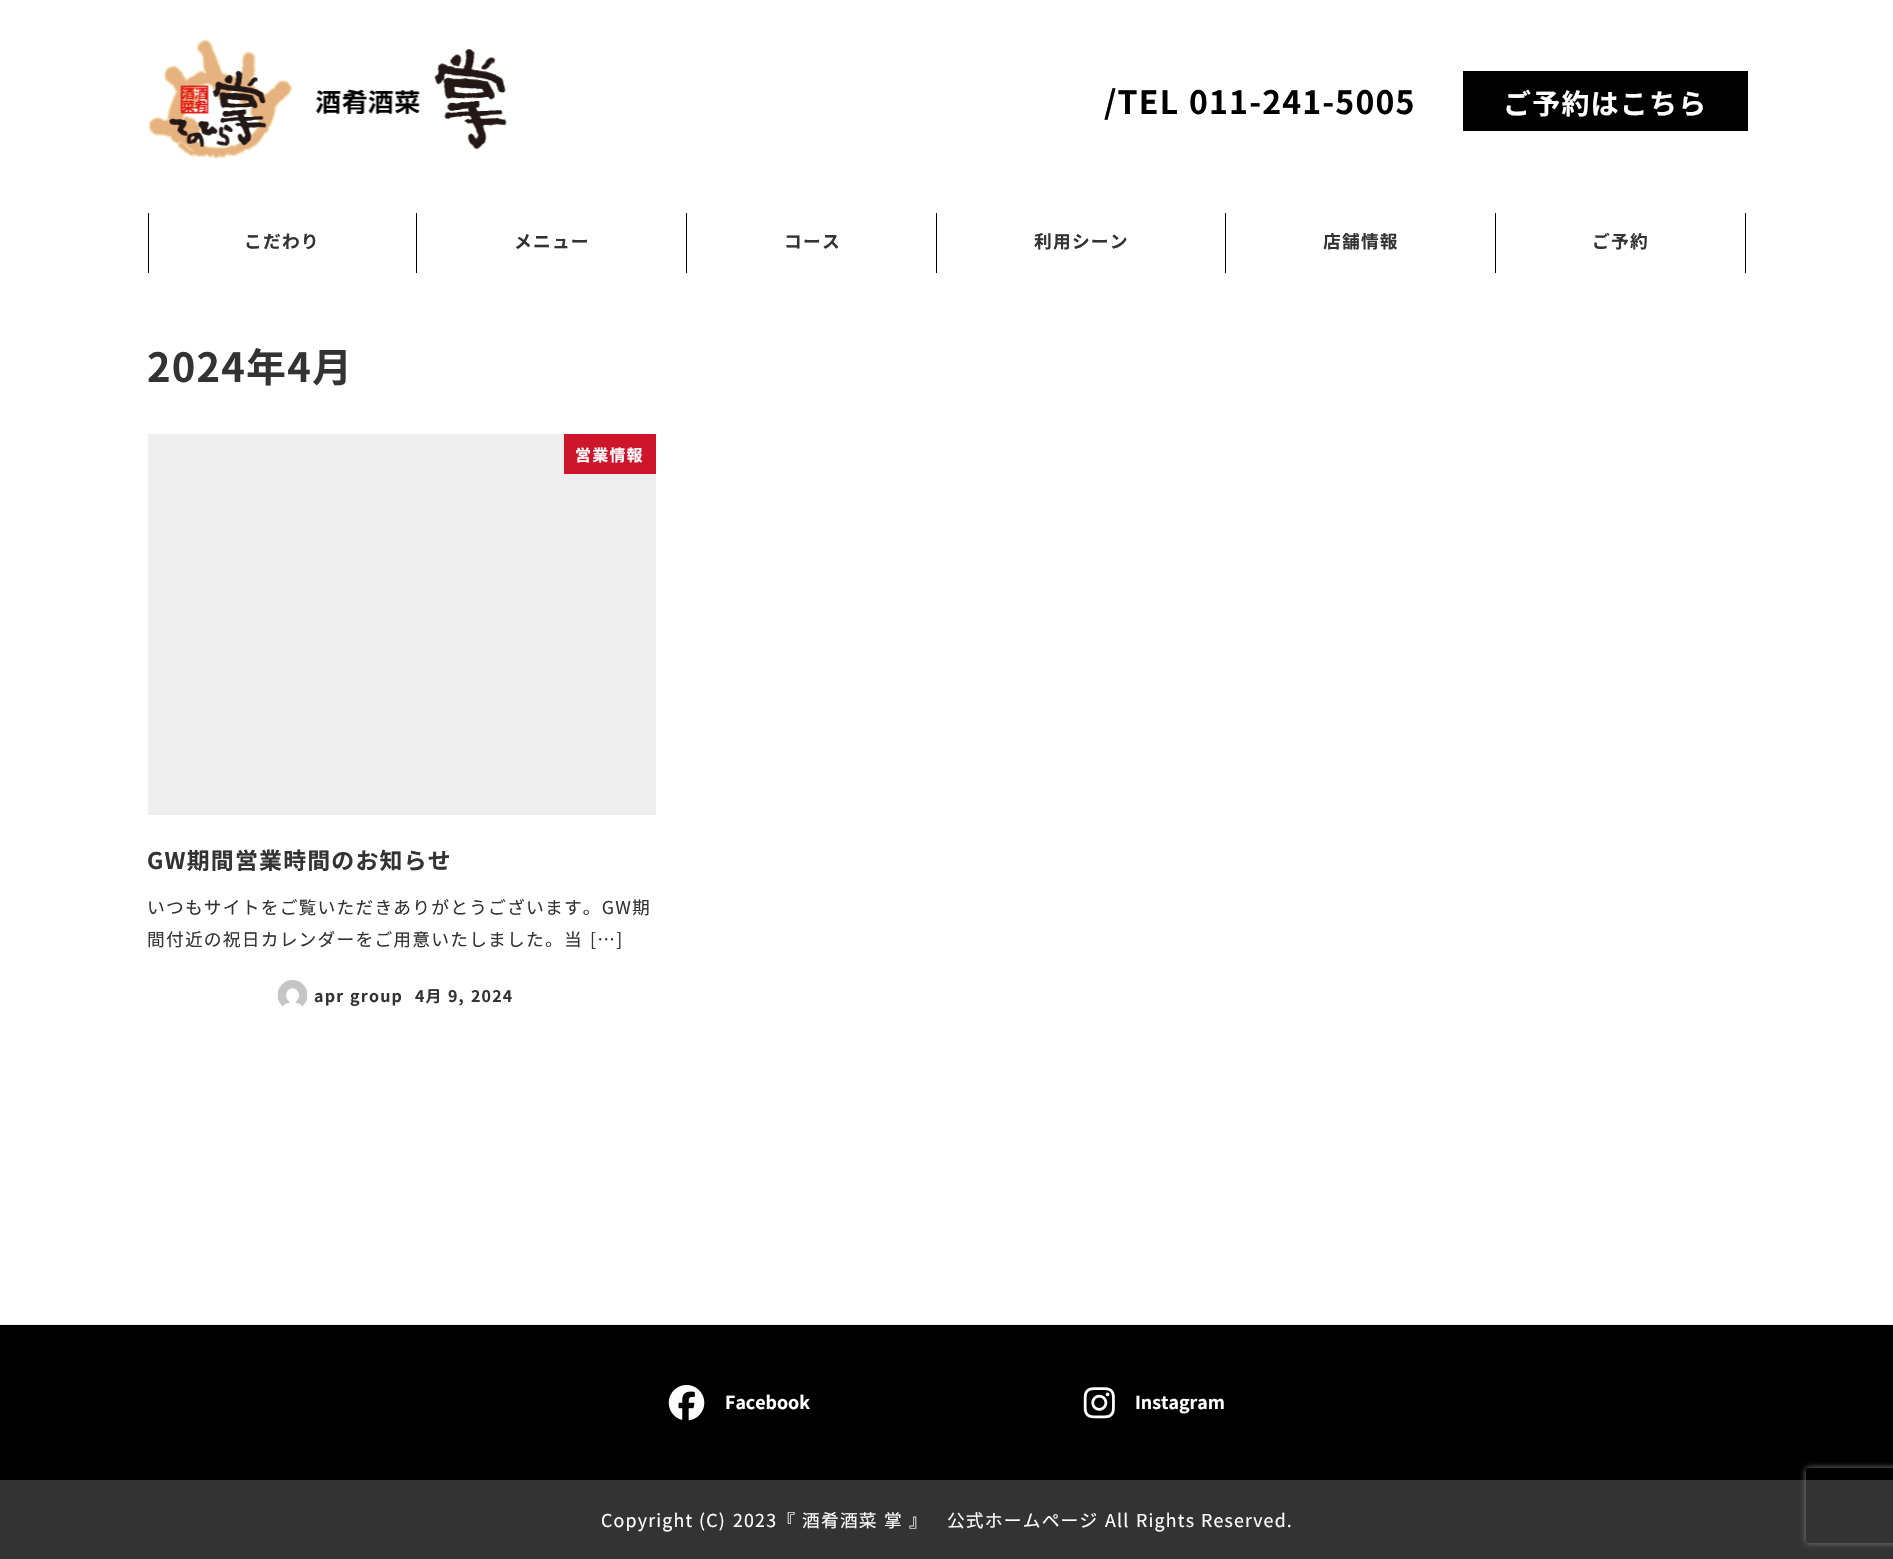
void draw(SkCanvas* c) {
SkPaint p;
p.setAntiAlias(true);
auto F=[&](const char* family, int weight, float size, bool italic = false){SkFontStyle style(weight, SkFontStyle::kNormal_Width,italic ? SkFontStyle::kItalic_Slant : SkFontStyle::kUpright_Slant);SkFont result(fontMgr->matchFamilyStyle(family, style), size);result.setSubpixel(true);return result;};
auto T=[&](const char* s, float x, float y, const SkFont& font){c->drawString(s, x, y, font, p);};
auto L=[&](const char* s, float x, float y, const SkFont& font, const SkPaint& ink, float letter, float word){std::vector<SkGlyphID> glyphs(font.countText(s, strlen(s), SkTextEncoding::kUTF8));std::vector<float> xs(glyphs.size());font.textToGlyphs(s, strlen(s), SkTextEncoding::kUTF8, glyphs);font.getXPos(glyphs, xs, x);float extra = 0;for (size_t i = 0; i < glyphs.size(); i++) {xs[i] += extra;extra += letter + word * (glyphs[i] == font.unicharToGlyph(' '));}c->drawTextBlob(SkTextBlob::MakeFromPosHGlyphs(glyphs, xs, y, font), 0, 0, ink);};
auto R=[&](float x, float y, float w, float h){c->drawRect(SkRect::MakeXYWH(x, y, w, h), p);};
auto I=[&](const char* path, float x, float y, float w, float h){auto image = SkImages::DeferredFromEncodedData(SkData::MakeFromFileName(path));c->drawImageRect(image, SkRect::MakeXYWH(x, y, w, h), SkSamplingOptions());};
auto P=[&](const char* data, bool evenOdd = false){SkPath result = *SkParsePath::FromSVGString(data);if (evenOdd) result.setFillType(SkPathFillType::kEvenOdd);return result;};
c->clear(0xffffffff);
I("1.png",148,39,359,120);
auto f1 = F("Noto Sans JP",700,32);
p.setColor(0xff000000);
L("/TEL",1104,114,f1,p,1.2,0);
L("011-241-5005",1189,114,f1,p,1.2,0);
R(1463,71,285,60);
auto f2 = F("Noto Sans JP",700,28);
p.setColor(0xffffffff);
L("ご予約はこちら",1503,114,f2,p,1.2,0);
p.setColor(0xff000000);
R(148,213,1,60);
auto f3 = F("Noto Sans JP",700,17.75);
p.setColor(0xff333333);
L("こだわり",244,248,f3,p,1.2,0);
p.setColor(0xff000000);
R(416,213,1,60);
p.setColor(0xff333333);
L("メニュー",514,248,f3,p,1.2,0);
p.setColor(0xff000000);
R(686,213,1,60);
p.setColor(0xff333333);
L("コース",784,248,f3,p,1.2,0);
p.setColor(0xff000000);
R(936,213,1,60);
p.setColor(0xff333333);
L("利用シーン",1034,248,f3,p,1.2,0);
p.setColor(0xff000000);
R(1225,213,1,60);
p.setColor(0xff333333);
L("店舗情報",1323,248,f3,p,1.2,0);
p.setColor(0xff000000);
R(1745,213,1,60);
R(1495,213,1,60);
p.setColor(0xff333333);
L("ご予約",1592,248,f3,p,1.2,0);
auto f4 = F("Noto Sans JP",700,40);
L("2024年4月",147,382,f4,p,1.2,0);
p.setColor(0xffeeeeee);
R(148,434,508,381);
p.setColor(0xffcd162c);
R(564,434,92,40);
auto f5 = F("Noto Sans JP",700,16);
p.setColor(0xffffffff);
L("営業情報",575,461,f5,p,1.2,0);
auto f6 = F("Noto Sans JP",700,22.9);
p.setColor(0xff333333);
L("GW期間営業時間のお知らせ",147,869,f6,p,1.2,0);
auto f7 = F("Noto Sans JP",400,17.75);
L("いつもサイトをご覧いただきありがとうございます。GW期",147,914,f7,p,1.2,0);
L("間付近の祝日カレンダーをご用意いたしました。当",147,946,f7,p,1.2,0);
L("[…]",590,946,f7,p,1.2,0);
I("2.png",277,980,31,27);
L("apr",314,1002,f5,p,1.2,0);
L("group",350,1002,f5,p,1.2,0);
L("4月",415,1002,f5,p,1.2,0);
L("9,",448,1002,f5,p,1.2,0);
L("2024",471,1002,f5,p,1.2,0);
p.setColor(0xffeeeeee);
R(0,1324,1893,1);
p.setColor(0xff000000);
R(0,1325,1893,155);
I("3.png",668,1385,37,36);
p.setColor(0xffffffff);
T("Facebook",725,1409,f3);
I("4.png",1083,1387,32,32);
T("Instagram",1135,1409,f3);
p.setColor(0xff333333);
R(0,1480,1893,79);
p.setColor(0xffffffff);
L("Copyright",601,1527,f7,p,1.2,0);
L("(C)",699,1527,f7,p,1.2,0);
L("2023『",733,1527,f7,p,1.2,0);
L("酒肴酒菜",802,1527,f7,p,1.2,0);
L("掌",884,1527,f7,p,1.2,0);
L("』　公式ホームページ",909,1527,f7,p,1.2,0);
L("All",1105,1527,f7,p,1.2,0);
L("Rights",1136,1527,f7,p,1.2,0);
L("Reserved.",1201,1527,f7,p,1.2,0);
c->save();
c->clipPath(P("M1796 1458h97v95h-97zm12.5 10h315c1.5 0 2.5 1 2.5 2.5v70c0 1.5-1 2.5-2.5 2.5h-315c-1.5 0-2.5-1-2.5-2.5v-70c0-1.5 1-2.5 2.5-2.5z",true),true);
p.setColor(0xff808080);
p.setMaskFilter(SkMaskFilter::MakeBlur(kNormal_SkBlurStyle, 3));
c->drawRoundRect(SkRect::MakeXYWH(1806,1468,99,75),2.5,2.5,p);
p.setMaskFilter(nullptr);
c->restore();
}
